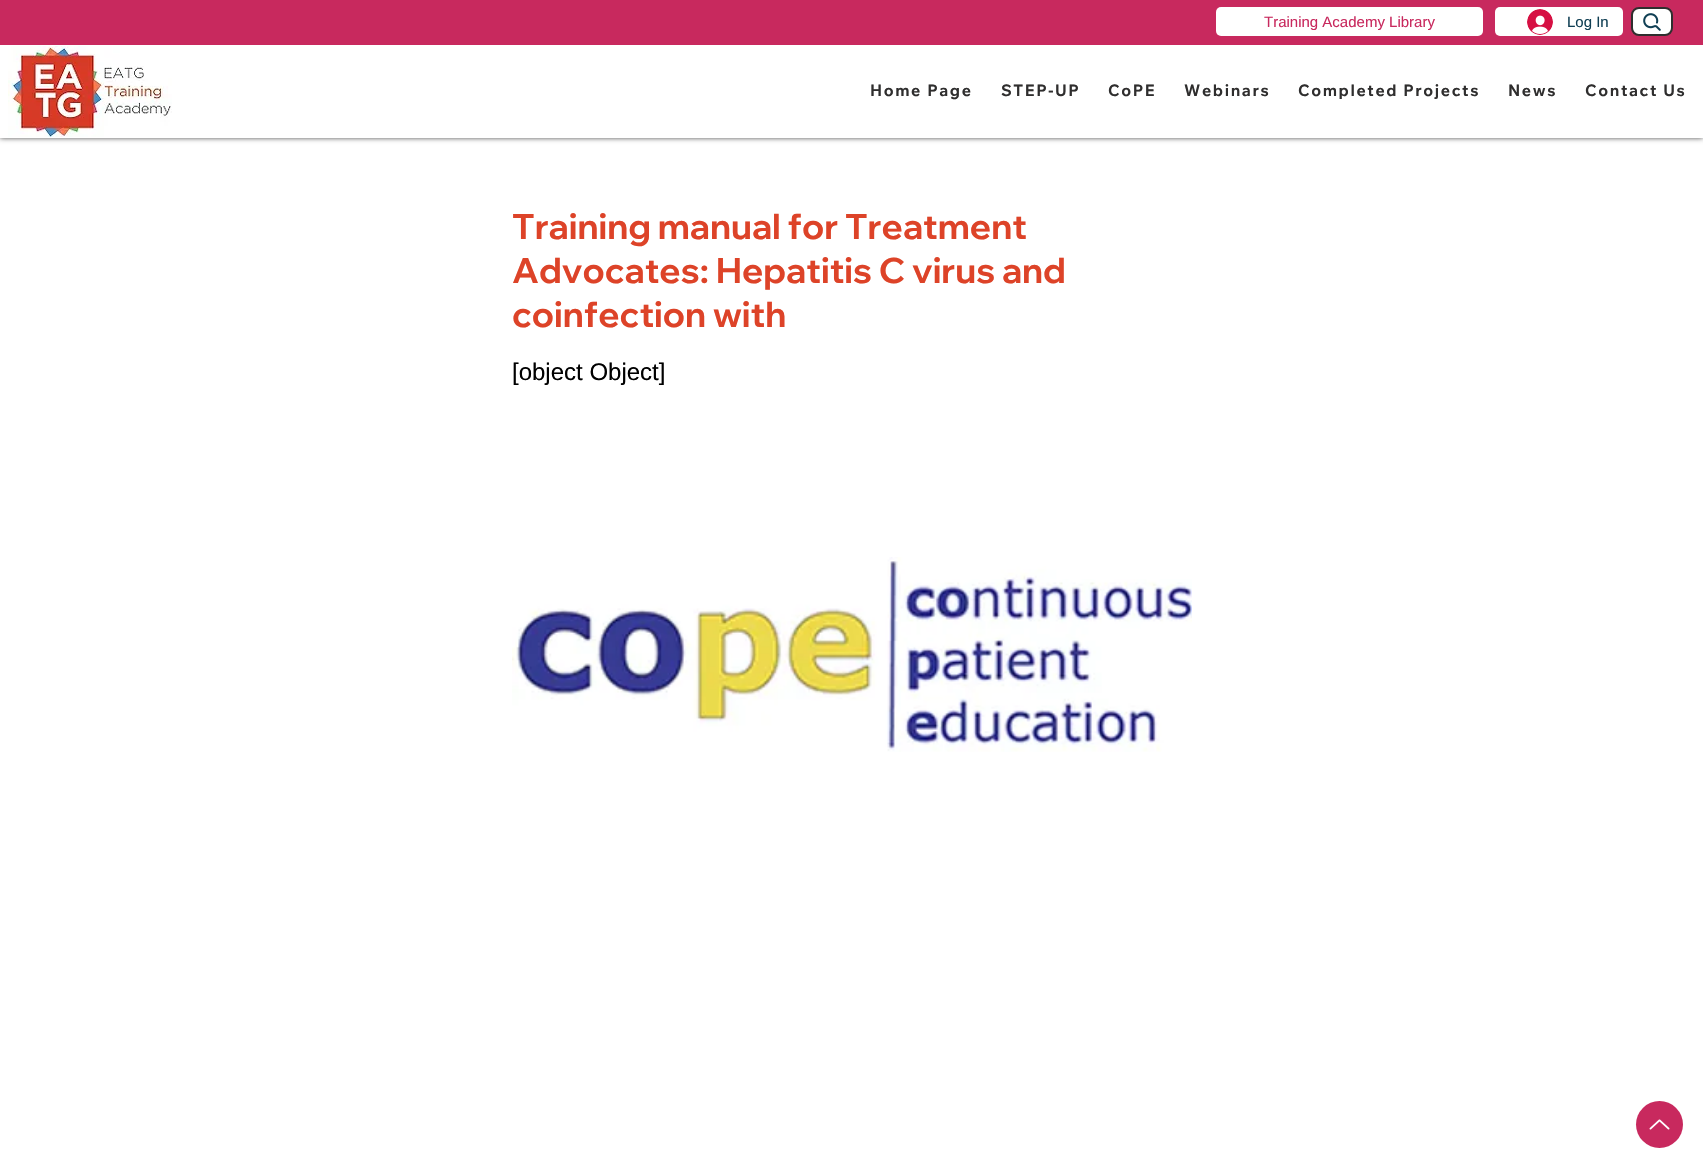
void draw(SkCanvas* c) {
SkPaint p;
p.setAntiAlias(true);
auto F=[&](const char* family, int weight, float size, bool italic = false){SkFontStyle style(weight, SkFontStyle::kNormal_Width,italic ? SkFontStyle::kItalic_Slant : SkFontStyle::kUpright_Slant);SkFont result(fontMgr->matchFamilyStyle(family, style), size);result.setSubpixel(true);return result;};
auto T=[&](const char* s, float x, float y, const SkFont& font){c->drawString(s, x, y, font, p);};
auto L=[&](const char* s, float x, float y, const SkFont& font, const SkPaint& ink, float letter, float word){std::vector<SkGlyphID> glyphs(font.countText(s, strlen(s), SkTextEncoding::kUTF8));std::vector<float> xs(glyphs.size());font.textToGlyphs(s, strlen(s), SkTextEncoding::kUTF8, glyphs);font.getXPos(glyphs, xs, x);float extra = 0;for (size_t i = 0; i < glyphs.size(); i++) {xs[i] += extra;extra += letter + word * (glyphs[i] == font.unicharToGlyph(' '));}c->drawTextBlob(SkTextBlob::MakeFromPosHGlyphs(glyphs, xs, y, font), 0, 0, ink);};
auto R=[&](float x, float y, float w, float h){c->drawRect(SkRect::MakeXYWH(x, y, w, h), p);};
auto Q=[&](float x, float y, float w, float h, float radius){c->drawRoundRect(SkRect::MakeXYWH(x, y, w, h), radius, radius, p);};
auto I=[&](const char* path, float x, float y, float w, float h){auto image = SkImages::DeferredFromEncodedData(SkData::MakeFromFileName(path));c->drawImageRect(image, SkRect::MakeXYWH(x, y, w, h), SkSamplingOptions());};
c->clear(0xffffffff);
p.setColor(0xb3000000);
p.setMaskFilter(SkMaskFilter::MakeBlur(kNormal_SkBlurStyle, 2.5));
c->drawRect(SkRect::MakeXYWH(0,0,1703,138),p);
p.setMaskFilter(nullptr);
p.setColor(0xffffffff);
R(0,45,1703,93);
p.setColor(0xffc8295e);
R(0,0,1703,45);
p.setColor(0xffffffff);
Q(1216,7,267,29,5);
auto f1 = F("Liberation Sans",400,15);
p.setColor(0xffc8295e);
T("Training Academy Library",1264,27,f1);
p.setColor(0xffffffff);
Q(1495,7,128,29,5);
I("1.png",1527,9,26,26);
p.setColor(0xff103f54);
T("Log In",1567,27,f1);
p.setColor(0xffffffff);
c->drawRoundRect(SkRect::MakeXYWH(1632,8,40,27),7,7,p);
p.setStroke(true);
p.setStrokeWidth(2);
p.setColor(0xff2f2e2e);
c->drawRoundRect(SkRect::MakeXYWH(1632,8,40,27),7,7,p);
I("2.png",1643,13,18,18);
I("3.png",8,46,164,91);
auto f2 = F("Wix Madefor Text",700,16);
p.setStroke(false);
L("Home Page",870,96,f2,p,1.6,0);
L("STEP-UP",1001,96,f2,p,1.6,0);
L("CoPE",1108,96,f2,p,1.6,0);
L("Webinars",1184,96,f2,p,1.6,0);
L("Completed Projects",1298,96,f2,p,1.6,0);
L("News",1508,96,f2,p,1.6,0);
L("Contact Us",1585,96,f2,p,1.6,0);
auto f3 = F("Wix Madefor Display",700,35);
p.setColor(0xffdd4328);
T("Training manual for Treatment",512,239,f3);
T("Advocates: Hepatitis C virus and",512,283,f3);
T("coinfection with",512,327,f3);
auto f4 = F("Liberation Sans",400,24);
p.setColor(0xff000000);
T("[object Object]",512,380,f4);
I("4.png",512,557,680,195);
p.setColor(0xffc8295e);
c->drawCircle(1659.5,1124.5,23.5,p);
I("5.png",1649,1119,21,11);
}
